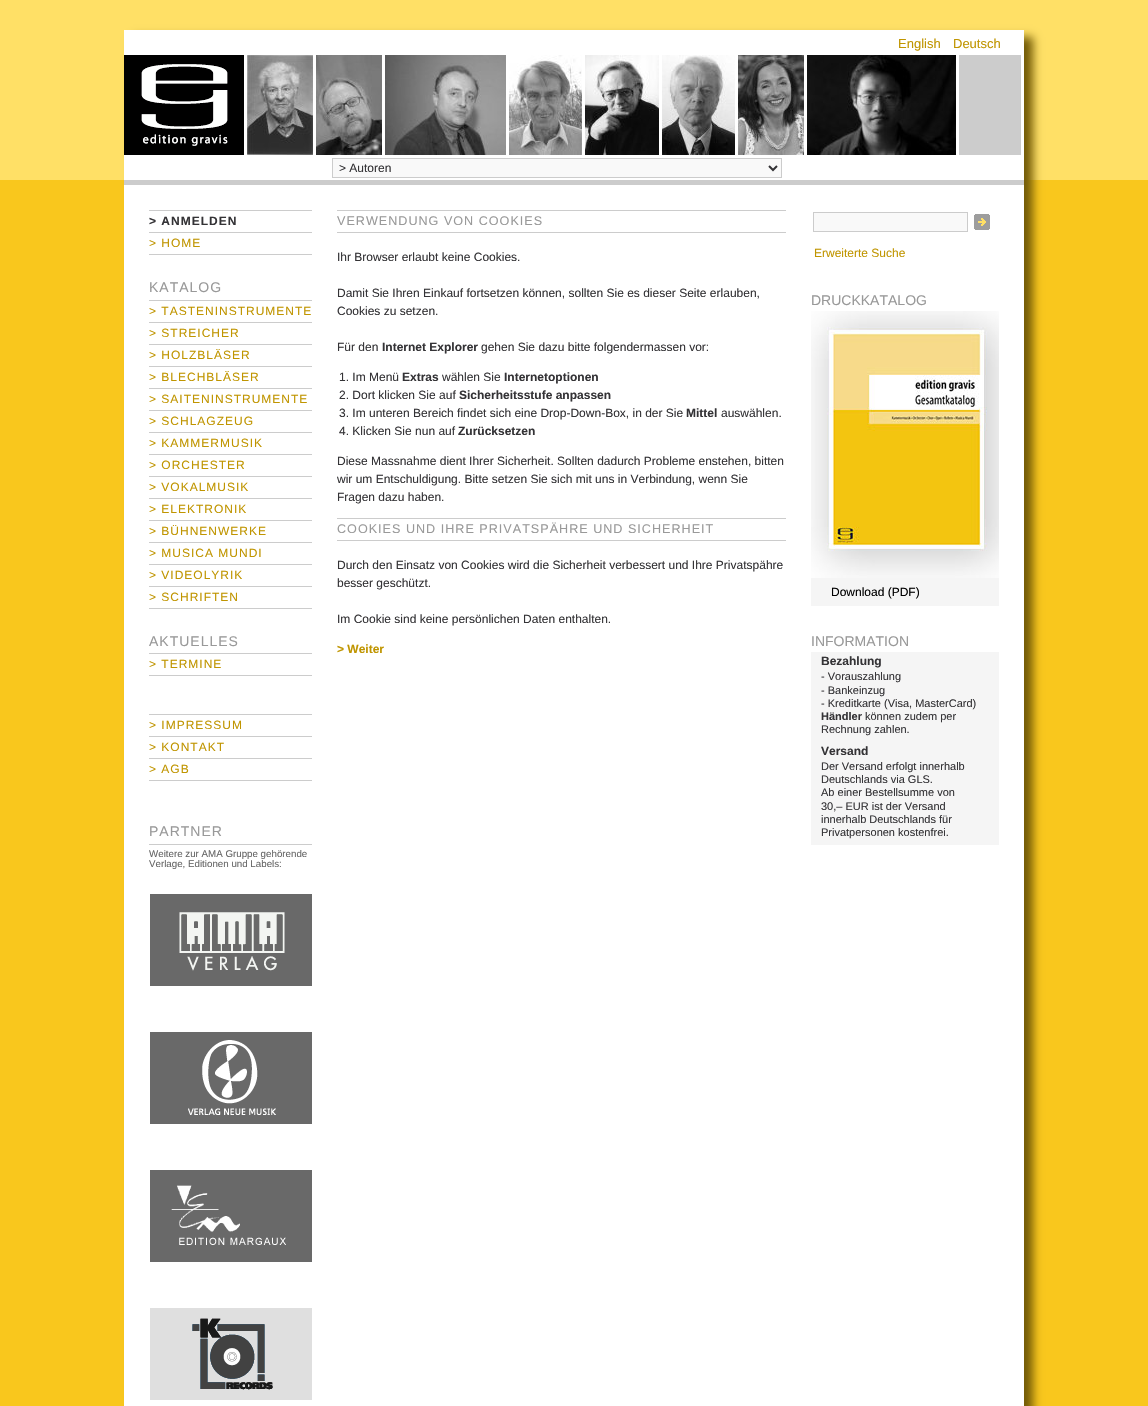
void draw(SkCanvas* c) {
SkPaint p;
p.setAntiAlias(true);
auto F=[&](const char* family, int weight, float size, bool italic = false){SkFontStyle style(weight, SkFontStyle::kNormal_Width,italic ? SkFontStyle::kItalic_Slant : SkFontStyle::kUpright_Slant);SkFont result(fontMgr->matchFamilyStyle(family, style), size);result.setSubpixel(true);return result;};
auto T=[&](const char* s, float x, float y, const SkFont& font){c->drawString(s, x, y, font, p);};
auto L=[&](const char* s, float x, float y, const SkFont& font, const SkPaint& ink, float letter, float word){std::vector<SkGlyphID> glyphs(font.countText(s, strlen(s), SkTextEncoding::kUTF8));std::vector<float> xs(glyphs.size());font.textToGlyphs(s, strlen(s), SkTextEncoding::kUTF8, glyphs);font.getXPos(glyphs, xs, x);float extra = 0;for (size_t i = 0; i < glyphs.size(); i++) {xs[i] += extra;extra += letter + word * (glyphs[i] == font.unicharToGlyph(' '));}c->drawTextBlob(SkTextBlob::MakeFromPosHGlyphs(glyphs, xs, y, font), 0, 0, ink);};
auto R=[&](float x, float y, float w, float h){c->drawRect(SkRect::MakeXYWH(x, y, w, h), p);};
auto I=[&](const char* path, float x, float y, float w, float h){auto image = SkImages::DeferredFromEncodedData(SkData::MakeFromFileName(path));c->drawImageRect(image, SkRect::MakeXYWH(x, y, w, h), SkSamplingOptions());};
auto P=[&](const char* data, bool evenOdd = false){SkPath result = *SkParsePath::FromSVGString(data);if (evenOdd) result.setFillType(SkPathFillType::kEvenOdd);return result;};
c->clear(0xfff9c71d);
p.setColor(0xffffe066);
R(0,0,1148,180);
p.setColor(0xff735b06);
p.setMaskFilter(SkMaskFilter::MakeBlur(kNormal_SkBlurStyle, 4.5));
c->drawRect(SkRect::MakeXYWH(133,37,900,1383),p);
p.setMaskFilter(nullptr);
p.setColor(0xffffffff);
R(124,30,900,150);
auto f1 = F("Liberation Sans",400,13);
p.setColor(0xffc09500);
T("English",898,48,f1);
T("Deutsch",953,48,f1);
I("1.png",124,55,120,100);
I("2.png",247,55,66,100);
I("3.png",316,55,66,100);
I("4.png",385,55,121,100);
I("5.png",509,55,73,100);
I("6.png",585,55,74,100);
I("7.png",662,55,73,100);
I("8.png",738,55,66,100);
I("9.png",807,55,149,100);
p.setColor(0xffcccccc);
R(959,55,62,100);
p.setColor(0xfff9f9f9);
c->drawRect(SkRect::MakeXYWH(332.5,158.5,449,19),p);
p.setStroke(true);
p.setStrokeWidth(1);
p.setColor(0xffcccccc);
c->drawRect(SkRect::MakeXYWH(332.5,158.5,449,19),p);
p.setStrokeWidth(2);
p.setColor(0xff343336);
c->drawPath(P("M769 166l4 4l4-4"),p);
auto f2 = F("Liberation Sans",400,12);
p.setStroke(false);
T("> Autoren",339,172,f2);
p.setColor(0xffffffff);
R(124,185,900,1221);
p.setColor(0xffcccccc);
R(124,180,900,5);
R(149,210,163,1);
R(149,232,163,1);
auto f3 = F("Liberation Sans",700,12);
p.setColor(0xff343336);
L("> ANMELDEN",149,225,f3,p,1,0);
p.setColor(0xffcccccc);
R(149,254,163,1);
p.setColor(0xffc09500);
L("> HOME",149,247,f2,p,1,0);
auto f4 = F("Liberation Sans",400,14);
p.setColor(0xff999999);
L("KATALOG",149,292,f4,p,1,0);
p.setColor(0xffcccccc);
R(149,300,163,1);
R(149,322,163,1);
p.setColor(0xffc09500);
L("> TASTENINSTRUMENTE",149,315,f2,p,1,0);
p.setColor(0xffcccccc);
R(149,344,163,1);
p.setColor(0xffc09500);
L("> STREICHER",149,337,f2,p,1,0);
p.setColor(0xffcccccc);
R(149,366,163,1);
p.setColor(0xffc09500);
L("> HOLZBLÄSER",149,359,f2,p,1,0);
p.setColor(0xffcccccc);
R(149,388,163,1);
p.setColor(0xffc09500);
L("> BLECHBLÄSER",149,381,f2,p,1,0);
p.setColor(0xffcccccc);
R(149,410,163,1);
p.setColor(0xffc09500);
L("> SAITENINSTRUMENTE",149,403,f2,p,1,0);
p.setColor(0xffcccccc);
R(149,432,163,1);
p.setColor(0xffc09500);
L("> SCHLAGZEUG",149,425,f2,p,1,0);
p.setColor(0xffcccccc);
R(149,454,163,1);
p.setColor(0xffc09500);
L("> KAMMERMUSIK",149,447,f2,p,1,0);
p.setColor(0xffcccccc);
R(149,476,163,1);
p.setColor(0xffc09500);
L("> ORCHESTER",149,469,f2,p,1,0);
p.setColor(0xffcccccc);
R(149,498,163,1);
p.setColor(0xffc09500);
L("> VOKALMUSIK",149,491,f2,p,1,0);
p.setColor(0xffcccccc);
R(149,520,163,1);
p.setColor(0xffc09500);
L("> ELEKTRONIK",149,513,f2,p,1,0);
p.setColor(0xffcccccc);
R(149,542,163,1);
p.setColor(0xffc09500);
L("> BÜHNENWERKE",149,535,f2,p,1,0);
p.setColor(0xffcccccc);
R(149,564,163,1);
p.setColor(0xffc09500);
L("> MUSICA MUNDI",149,557,f2,p,1,0);
p.setColor(0xffcccccc);
R(149,586,163,1);
p.setColor(0xffc09500);
L("> VIDEOLYRIK",149,579,f2,p,1,0);
p.setColor(0xffcccccc);
R(149,608,163,1);
p.setColor(0xffc09500);
L("> SCHRIFTEN",149,601,f2,p,1,0);
p.setColor(0xff999999);
L("AKTUELLES",149,646,f4,p,1,0);
p.setColor(0xffcccccc);
R(149,653,163,1);
R(149,675,163,1);
p.setColor(0xffc09500);
L("> TERMINE",149,668,f2,p,1,0);
p.setColor(0xffcccccc);
R(149,714,163,1);
R(149,736,163,1);
p.setColor(0xffc09500);
L("> IMPRESSUM",149,729,f2,p,1,0);
p.setColor(0xffcccccc);
R(149,758,163,1);
p.setColor(0xffc09500);
L("> KONTAKT",149,751,f2,p,1,0);
p.setColor(0xffcccccc);
R(149,780,163,1);
p.setColor(0xffc09500);
L("> AGB",149,773,f2,p,1,0);
p.setColor(0xff999999);
L("PARTNER",149,836,f4,p,1,0);
p.setColor(0xffcccccc);
R(149,844,163,1);
auto f5 = F("Liberation Sans",400,9.75);
p.setColor(0xff666666);
T("Weitere zur AMA Gruppe gehörende",149,857,f5);
T("Verlage, Editionen und Labels:",149,867,f5);
I("10.png",150,894,162,92);
I("11.png",150,1032,162,92);
I("12.png",150,1170,162,92);
I("13.png",150,1308,162,92);
p.setColor(0xffcccccc);
R(337,210,449,1);
R(337,232,449,1);
auto f6 = F("Liberation Sans",400,12.6);
p.setColor(0xff999999);
L("VERWENDUNG VON COOKIES",337,225,f6,p,1,0);
p.setColor(0xff343336);
T("Ihr Browser erlaubt keine Cookies.",337,261,f2);
T("Damit Sie Ihren Einkauf fortsetzen können, sollten Sie es dieser Seite erlauben,",337,297,f2);
T("Cookies zu setzen.",337,315,f2);
T("Für den",337,351,f2);
T("Internet Explorer",382,351,f3);
T("gehen Sie dazu bitte folgendermassen vor:",481,351,f2);
T("1. Im Menü",339,381,f2);
T("Extras",402,381,f3);
T("wählen Sie",442,381,f2);
T("Internetoptionen",504,381,f3);
T("2. Dort klicken Sie auf",339,399,f2);
T("Sicherheitsstufe anpassen",459,399,f3);
T("3. Im unteren Bereich findet sich eine Drop-Down-Box, in der Sie",339,417,f2);
T("Mittel",686,417,f3);
T("auswählen.",721,417,f2);
T("4. Klicken Sie nun auf",339,435,f2);
T("Zurücksetzen",458,435,f3);
T("Diese Massnahme dient Ihrer Sicherheit. Sollten dadurch Probleme enstehen, bitten",337,465,f2);
T("wir um Entschuldigung. Bitte setzen Sie sich mit uns in Verbindung, wenn Sie",337,483,f2);
T("Fragen dazu haben.",337,501,f2);
p.setColor(0xffcccccc);
R(337,518,449,1);
R(337,540,449,1);
p.setColor(0xff999999);
L("COOKIES UND IHRE PRIVATSPÄHRE UND SICHERHEIT",337,533,f6,p,1,0);
p.setColor(0xff343336);
T("Durch den Einsatz von Cookies wird die Sicherheit verbessert und Ihre Privatspähre",337,569,f2);
T("besser geschützt.",337,587,f2);
T("Im Cookie sind keine persönlichen Daten enthalten.",337,623,f2);
p.setColor(0xffc09500);
T("> Weiter",337,653,f3);
p.setColor(0xfff9f9f9);
c->drawRect(SkRect::MakeXYWH(813.5,212.5,154,19),p);
p.setStroke(true);
p.setStrokeWidth(1);
p.setColor(0xffcccccc);
c->drawRect(SkRect::MakeXYWH(813.5,212.5,154,19),p);
I("14.png",974,214,16,16);
p.setStroke(false);
p.setColor(0xffc09500);
T("Erweiterte Suche",814,257,f2);
p.setColor(0xff999999);
T("DRUCKKATALOG",811,305,f4);
p.setColor(0xfff5f5f5);
R(811,578,188,28);
I("15.png",811,311,188,267);
p.setColor(0xff000000);
T("Download (PDF)",831,596,f2);
p.setColor(0xff999999);
T("INFORMATION",811,646,f4);
p.setColor(0xfff5f5f5);
R(811,652,188,193);
p.setColor(0xff343336);
T("Bezahlung",821,665,f3);
auto f7 = F("Liberation Sans",400,11);
T("- Vorauszahlung",821,680,f7);
T("- Bankeinzug",821,694,f7);
T("- Kreditkarte (Visa, MasterCard)",821,707,f7);
auto f8 = F("Liberation Sans",700,11);
T("Händler",821,720,f8);
T("können zudem per",865,720,f7);
T("Rechnung zahlen.",821,733,f7);
T("Versand",821,755,f3);
T("Der Versand erfolgt innerhalb",821,770,f7);
T("Deutschlands via GLS.",821,783,f7);
T("Ab einer Bestellsumme von",821,796,f7);
T("30,– EUR ist der Versand",821,810,f7);
T("innerhalb Deutschlands für",821,823,f7);
T("Privatpersonen kostenfrei.",821,836,f7);
}
